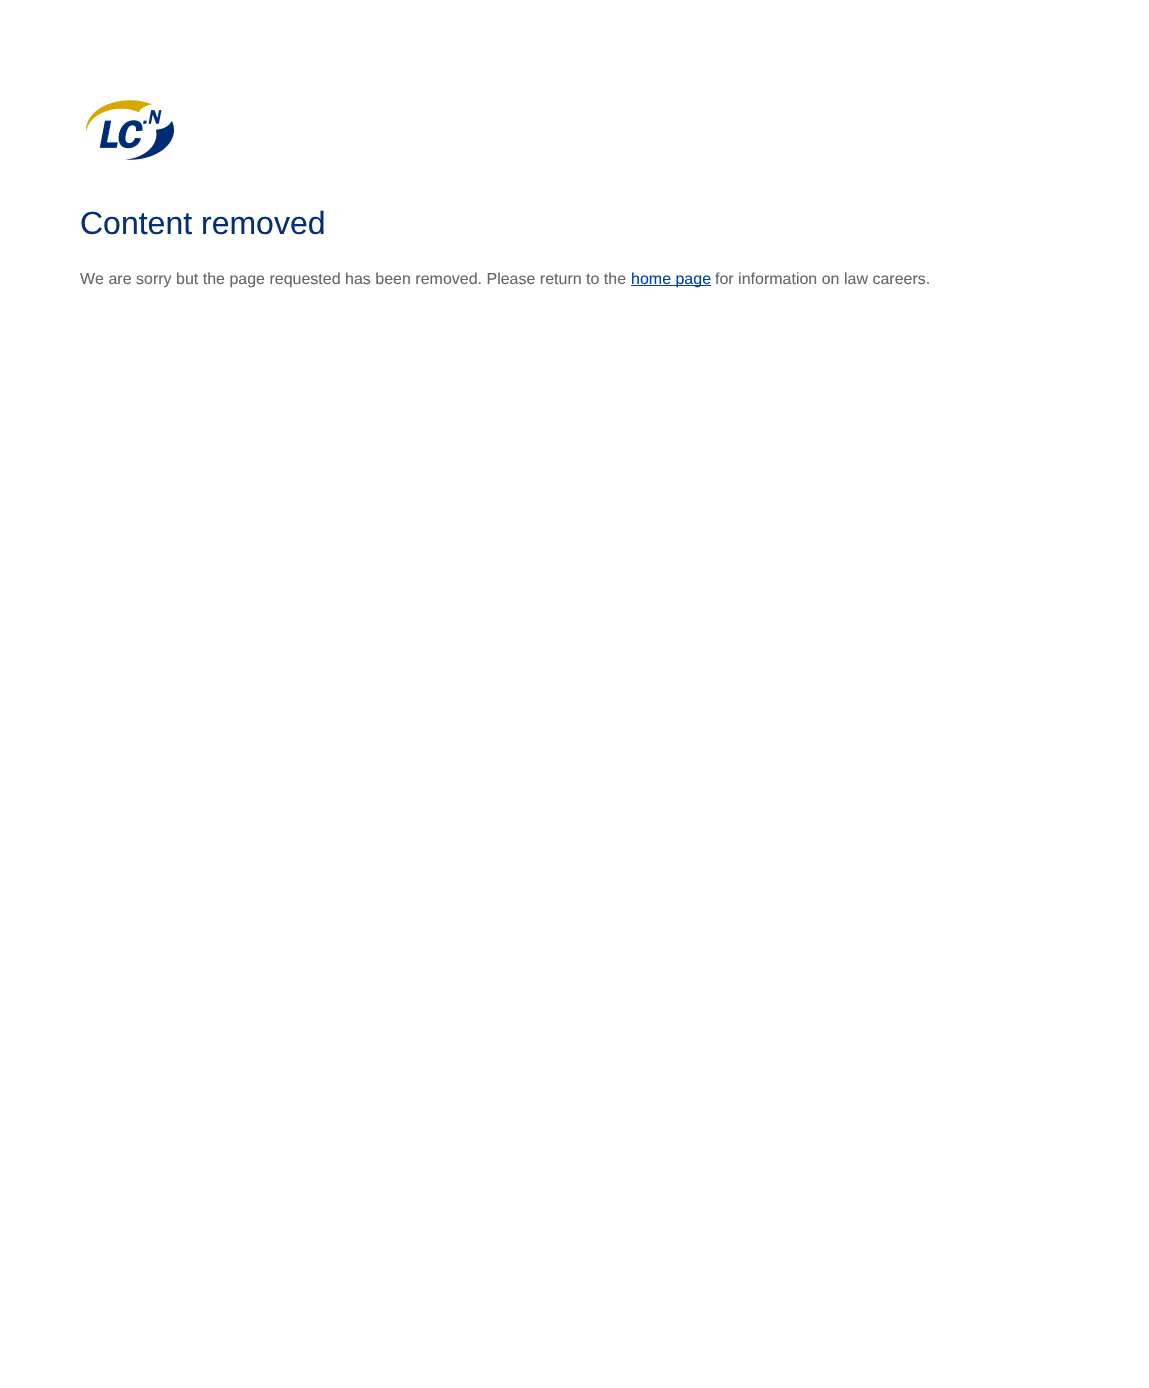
void draw(SkCanvas* c) {
SkPaint p;
p.setAntiAlias(true);
auto F=[&](const char* family, int weight, float size, bool italic = false){SkFontStyle style(weight, SkFontStyle::kNormal_Width,italic ? SkFontStyle::kItalic_Slant : SkFontStyle::kUpright_Slant);SkFont result(fontMgr->matchFamilyStyle(family, style), size);result.setSubpixel(true);return result;};
auto T=[&](const char* s, float x, float y, const SkFont& font){c->drawString(s, x, y, font, p);};
auto R=[&](float x, float y, float w, float h){c->drawRect(SkRect::MakeXYWH(x, y, w, h), p);};
auto I=[&](const char* path, float x, float y, float w, float h){auto image = SkImages::DeferredFromEncodedData(SkData::MakeFromFileName(path));c->drawImageRect(image, SkRect::MakeXYWH(x, y, w, h), SkSamplingOptions());};
c->clear(0xffffffff);
I("1.png",86,100,88,60);
auto f1 = F("Liberation Sans",400,32);
p.setColor(0xff043074);
T("Content removed",80,234,f1);
auto f2 = F("Liberation Sans",400,16);
p.setColor(0xff666666);
T("We are sorry but the page requested has been removed. Please return to the",80,284,f2);
p.setColor(0xff0041ad);
R(631,285,80,1);
T("home page",631,284,f2);
p.setColor(0xff666666);
T("for information on law careers.",715,284,f2);
}
